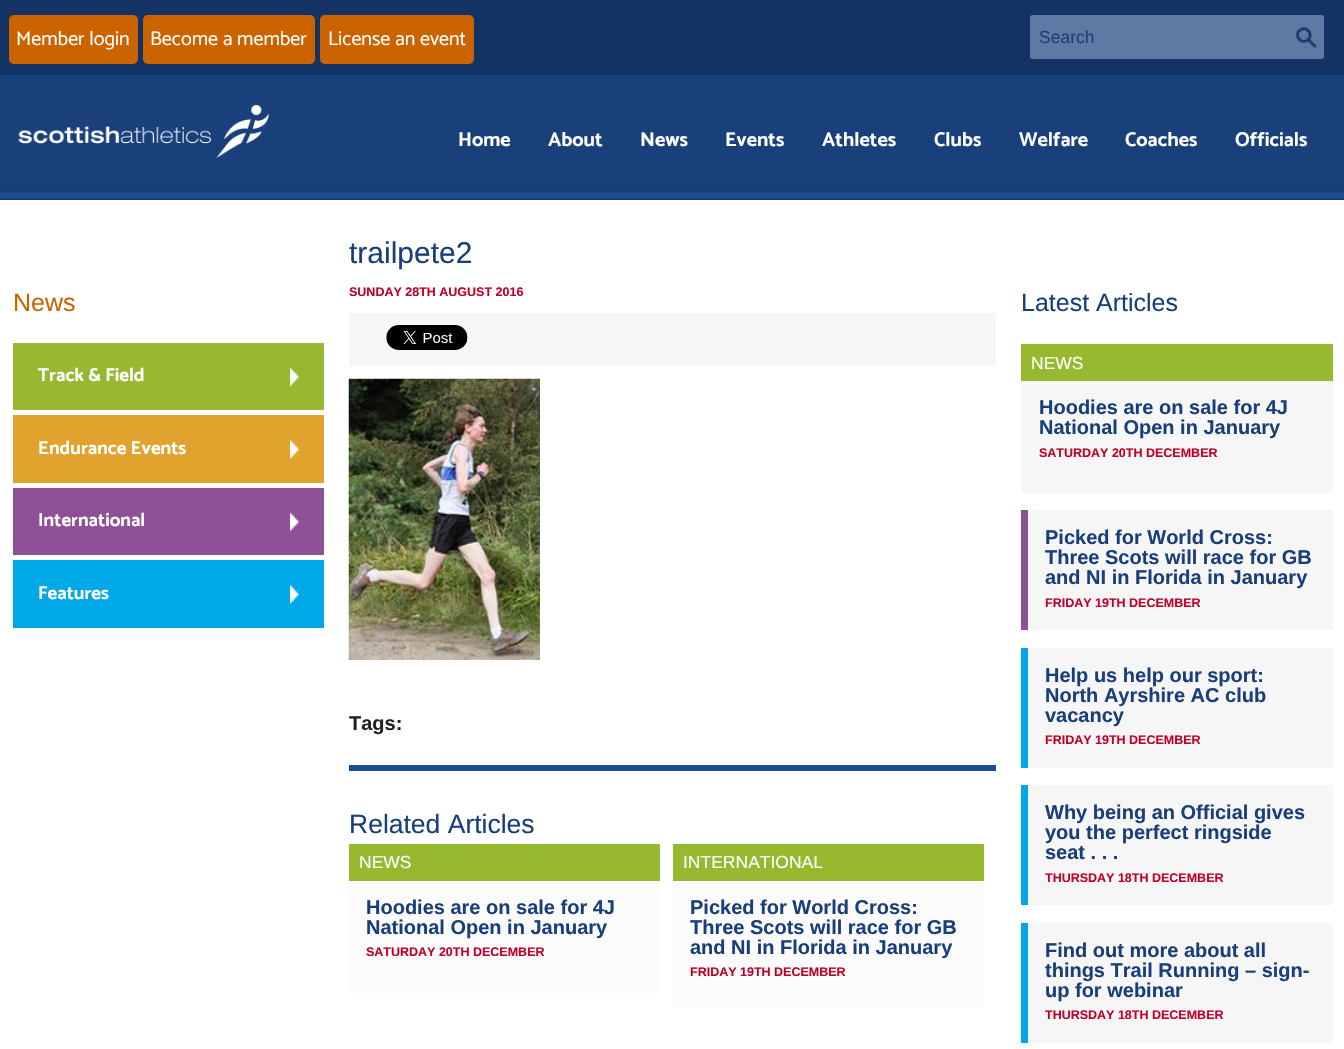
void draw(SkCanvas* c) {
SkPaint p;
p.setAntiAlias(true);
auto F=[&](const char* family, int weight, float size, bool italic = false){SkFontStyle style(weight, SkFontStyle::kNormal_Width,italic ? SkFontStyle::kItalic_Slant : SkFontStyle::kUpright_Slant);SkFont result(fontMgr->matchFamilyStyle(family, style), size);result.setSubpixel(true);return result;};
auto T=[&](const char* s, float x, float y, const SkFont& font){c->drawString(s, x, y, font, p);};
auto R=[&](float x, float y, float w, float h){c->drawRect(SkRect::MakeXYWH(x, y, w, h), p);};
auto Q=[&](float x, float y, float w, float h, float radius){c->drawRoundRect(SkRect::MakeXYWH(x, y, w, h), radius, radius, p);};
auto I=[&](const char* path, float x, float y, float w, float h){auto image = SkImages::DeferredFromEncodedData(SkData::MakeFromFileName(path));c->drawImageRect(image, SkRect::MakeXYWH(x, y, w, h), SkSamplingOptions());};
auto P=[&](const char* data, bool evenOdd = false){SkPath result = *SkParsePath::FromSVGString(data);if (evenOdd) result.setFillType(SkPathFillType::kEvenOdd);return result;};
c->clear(0xffffffff);
p.setColor(0xff143365);
R(0,0,1344,75);
p.setColor(0xffcb6400);
Q(9,15,129,49,5);
auto f1 = F("Catamaran",400,20);
p.setColor(0xffffffff);
T("Member login",16,45,f1);
p.setColor(0xffcb6400);
Q(143,15,172,49,5);
p.setColor(0xffffffff);
T("Become a member",150,45,f1);
p.setColor(0xffcb6400);
Q(320,15,154,49,5);
p.setColor(0xffffffff);
T("License an event",328,45,f1);
p.setColor(0xff5e79a4);
c->drawPath(P("M1032.5 15h242.5v44h-242.5c-1.5 0-2.5-1-2.5-2.5v-39c0-1.5 1-2.5 2.5-2.5z"),p);
auto f2 = F("Liberation Sans",400,17.5);
p.setColor(0xff193f7b);
T("Search",1039,43,f2);
p.setColor(0xff5e79a4);
c->drawPath(P("M1275 15h46.5c1.5 0 2.5 1 2.5 2.5v39c0 1.5-1 2.5-2.5 2.5h-46.5z"),p);
I("1.png",1293,24,28,25);
I("2.png",0,75,1344,125);
I("3.png",18,105,251,53);
auto f3 = F("Catamaran",700,20);
p.setColor(0xffffffff);
T("Home",458,146,f3);
T("About",548,146,f3);
T("News",640,146,f3);
T("Events",725,146,f3);
T("Athletes",822,146,f3);
T("Clubs",934,146,f3);
T("Welfare",1019,146,f3);
T("Coaches",1125,146,f3);
T("Officials",1235,146,f3);
auto f4 = F("Liberation Sans",400,25);
p.setColor(0xffcb6400);
T("News",13,311,f4);
p.setColor(0xff96b92f);
R(13,343,311,67);
I("4.png",290,367,9,20);
auto f5 = F("Catamaran",700,18.75);
p.setColor(0xffffffff);
T("Track & Field",38,381,f5);
p.setColor(0xffe1a32e);
R(13,415,311,68);
I("5.png",290,440,9,19);
p.setColor(0xffffffff);
T("Endurance Events",38,454,f5);
p.setColor(0xff8e5198);
R(13,488,311,67);
I("6.png",290,512,9,20);
p.setColor(0xffffffff);
T("International",38,526,f5);
p.setColor(0xff00a8e8);
R(13,560,311,68);
I("7.png",290,585,9,19);
p.setColor(0xffffffff);
T("Features",38,599,f5);
auto f6 = F("Liberation Sans",400,30);
p.setColor(0xff193f7b);
T("trailpete2",349,263,f6);
auto f7 = F("Liberation Sans",700,12.5);
p.setColor(0xffc0002a);
T("SUNDAY 28TH AUGUST 2016",349,296,f7);
p.setColor(0xfff6f6f6);
R(349,313,647,53);
I("8.png",386,325,82,25);
I("9.png",348,378,192,282);
auto f8 = F("Liberation Sans",700,20);
p.setColor(0xff222222);
T("Tags:",349,730,f8);
p.setColor(0xff1e4b94);
R(349,765,647,6);
auto f9 = F("Liberation Sans",400,26.5);
p.setColor(0xff193f7b);
T("Related Articles",349,833,f9);
p.setColor(0xff96b92f);
R(349,844,311,37);
p.setColor(0xffffffff);
T("NEWS",359,868,f2);
p.setColor(0xfffbfbfb);
R(349,881,311,112);
p.setColor(0xff193f7b);
T("Hoodies are on sale for 4J",366,914,f8);
T("National Open in January",366,934,f8);
p.setColor(0xffc0002a);
T("SATURDAY 20TH DECEMBER",366,956,f7);
p.setColor(0xff96b92f);
R(673,844,311,37);
p.setColor(0xffffffff);
T("INTERNATIONAL",683,868,f2);
p.setColor(0xfffbfbfb);
R(673,881,311,127);
p.setColor(0xff193f7b);
T("Picked for World Cross:",690,914,f8);
T("Three Scots will race for GB",690,934,f8);
T("and NI in Florida in January",690,954,f8);
p.setColor(0xffc0002a);
T("FRIDAY 19TH DECEMBER",690,976,f7);
p.setColor(0xff193f7b);
T("Latest Articles",1021,311,f4);
p.setColor(0xfff6f6f6);
R(1021,343,312,150);
p.setColor(0xff96b92f);
R(1021,344,312,37);
p.setColor(0xffffffff);
T("NEWS",1031,369,f2);
p.setColor(0xff193f7b);
T("Hoodies are on sale for 4J",1039,414,f8);
T("National Open in January",1039,434,f8);
p.setColor(0xffc0002a);
T("SATURDAY 20TH DECEMBER",1039,457,f7);
p.setColor(0xfff6f6f6);
R(1028,510,305,120);
p.setColor(0xff8e5198);
R(1021,510,7,120);
p.setColor(0xff193f7b);
T("Picked for World Cross:",1045,544,f8);
T("Three Scots will race for GB",1045,564,f8);
T("and NI in Florida in January",1045,584,f8);
p.setColor(0xffc0002a);
T("FRIDAY 19TH DECEMBER",1045,607,f7);
p.setColor(0xfff6f6f6);
R(1028,648,305,120);
p.setColor(0xff00a8e8);
R(1021,648,7,120);
p.setColor(0xff193f7b);
T("Help us help our sport:",1045,682,f8);
T("North Ayrshire AC club",1045,702,f8);
T("vacancy",1045,722,f8);
p.setColor(0xffc0002a);
T("FRIDAY 19TH DECEMBER",1045,744,f7);
p.setColor(0xfff6f6f6);
R(1028,785,305,120);
p.setColor(0xff00a8e8);
R(1021,785,7,120);
p.setColor(0xff193f7b);
T("Why being an Official gives",1045,819,f8);
T("you the perfect ringside",1045,839,f8);
T("seat . . .",1045,859,f8);
p.setColor(0xffc0002a);
T("THURSDAY 18TH DECEMBER",1045,882,f7);
p.setColor(0xfff6f6f6);
R(1028,923,305,120);
p.setColor(0xff00a8e8);
R(1021,923,7,120);
p.setColor(0xff193f7b);
T("Find out more about all",1045,957,f8);
T("things Trail Running – sign-",1045,977,f8);
T("up for webinar",1045,997,f8);
p.setColor(0xffc0002a);
T("THURSDAY 18TH DECEMBER",1045,1019,f7);
}
